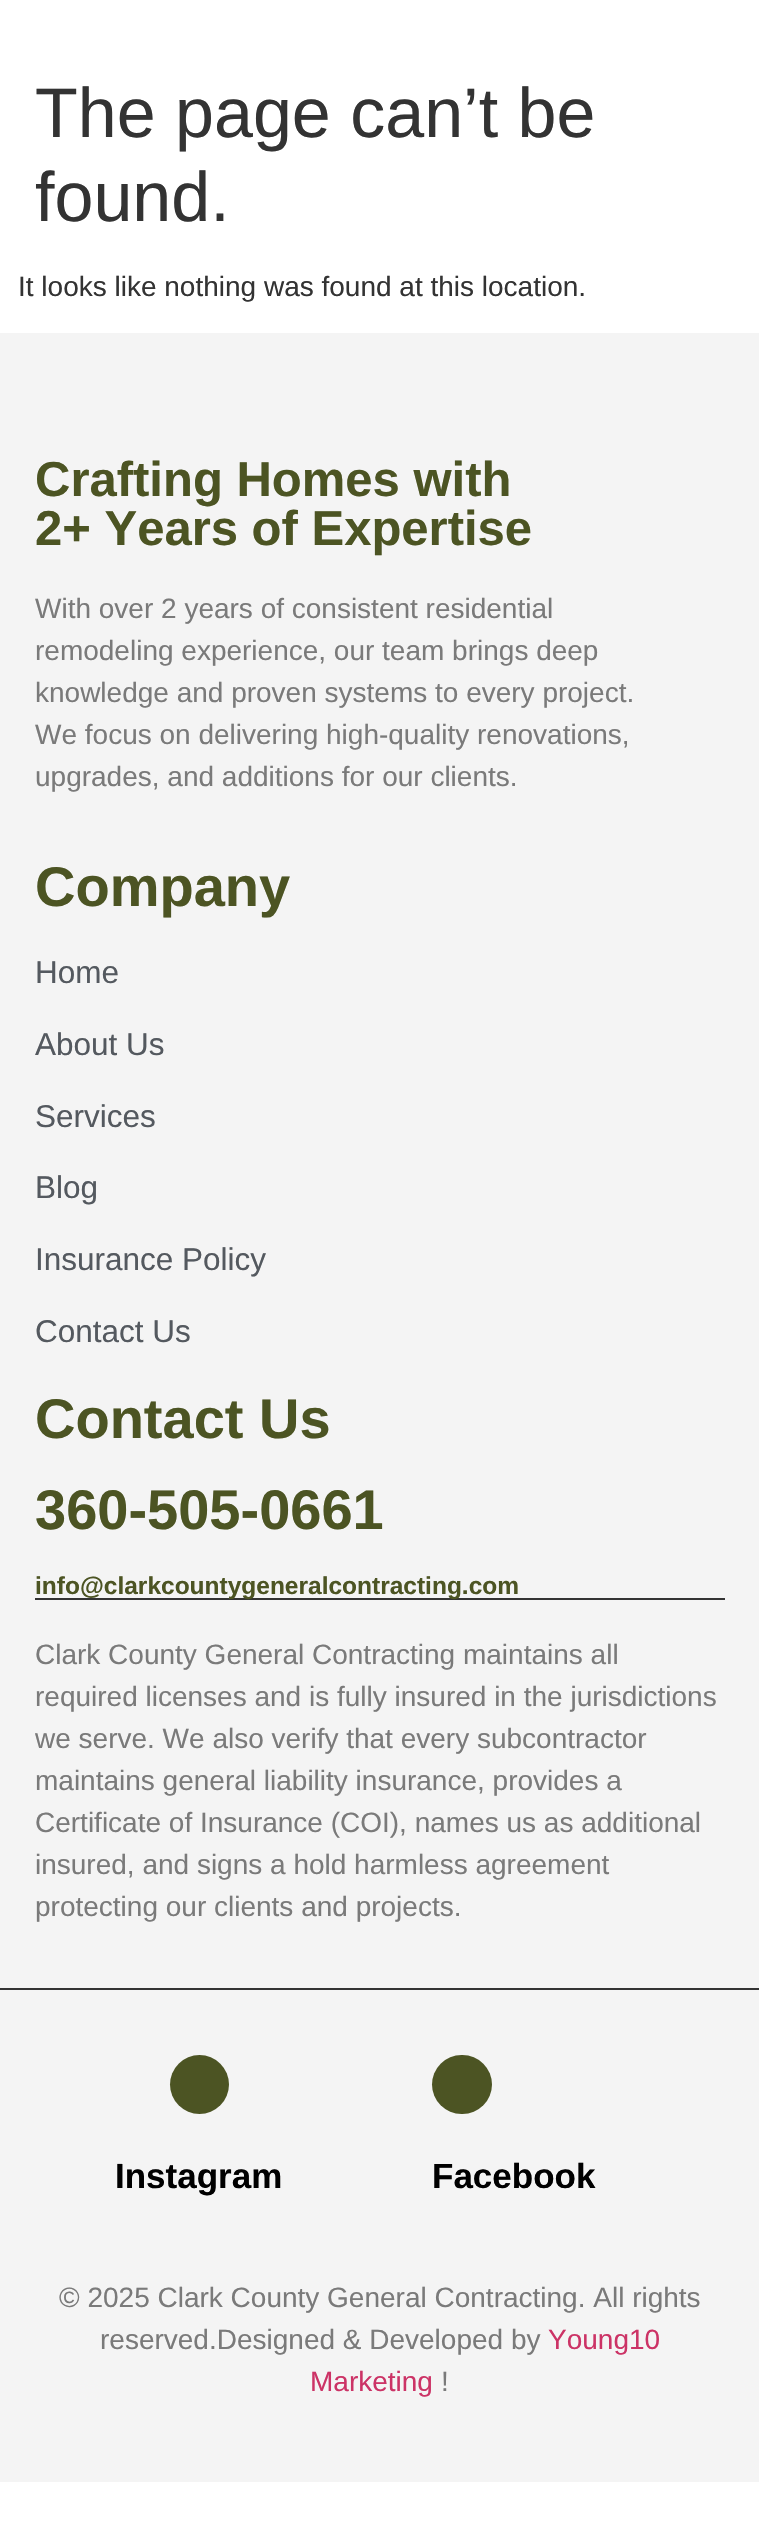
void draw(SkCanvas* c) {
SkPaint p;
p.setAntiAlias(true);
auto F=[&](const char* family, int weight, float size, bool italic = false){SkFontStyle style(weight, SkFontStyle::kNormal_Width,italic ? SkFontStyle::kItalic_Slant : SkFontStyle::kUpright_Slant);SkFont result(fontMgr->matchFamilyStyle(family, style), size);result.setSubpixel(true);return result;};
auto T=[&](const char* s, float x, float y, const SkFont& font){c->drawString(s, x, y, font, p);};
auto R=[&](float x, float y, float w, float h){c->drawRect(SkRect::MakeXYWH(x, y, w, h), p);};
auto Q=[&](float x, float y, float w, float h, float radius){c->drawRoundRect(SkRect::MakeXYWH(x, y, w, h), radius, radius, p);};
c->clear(0xffffffff);
auto f1 = F("Liberation Sans",400,70);
p.setColor(0xff333333);
T("The page can’t be",35,137,f1);
T("found.",35,221,f1);
auto f2 = F("Liberation Sans",400,28);
T("It looks like nothing was found at this location.",18,296,f2);
p.setColor(0xfff4f4f4);
R(0,333,759,1655);
auto f3 = F("Liberation Sans",700,49);
p.setColor(0xff4c5423);
T("Crafting Homes with",35,496,f3);
T("2+ Years of Expertise",35,545,f3);
p.setColor(0xff7a7a7a);
T("With over 2 years of consistent residential",35,618,f2);
T("remodeling experience, our team brings deep",35,660,f2);
T("knowledge and proven systems to every project.",35,702,f2);
T("We focus on delivering high-quality renovations,",35,744,f2);
T("upgrades, and additions for our clients.",35,786,f2);
auto f4 = F("Liberation Sans",700,56);
p.setColor(0xff4c5423);
T("Company",35,906,f4);
auto f5 = F("Liberation Sans",400,31.5);
p.setColor(0xff54595f);
T("Home",35,983,f5);
T("About Us",35,1055,f5);
T("Services",35,1127,f5);
T("Blog",35,1198,f5);
T("Insurance Policy",35,1270,f5);
T("Contact Us",35,1342,f5);
p.setColor(0xff4c5423);
T("Contact Us",35,1438,f4);
T("360-505-0661",35,1529,f4);
p.setColor(0xff333333);
R(35,1598,690,2);
auto f6 = F("Liberation Sans",700,24.5);
p.setColor(0xff4c5423);
T("info@clarkcountygeneralcontracting.com",35,1594,f6);
p.setColor(0xff7a7a7a);
T("Clark County General Contracting maintains all",35,1664,f2);
T("required licenses and is fully insured in the jurisdictions",35,1706,f2);
T("we serve. We also verify that every subcontractor",35,1748,f2);
T("maintains general liability insurance, provides a",35,1790,f2);
T("Certificate of Insurance (COI), names us as additional",35,1832,f2);
T("insured, and signs a hold harmless agreement",35,1874,f2);
T("protecting our clients and projects.",35,1916,f2);
p.setColor(0xfff4f4f4);
R(0,1990,759,492);
p.setColor(0xff333333);
R(0,1988,759,2);
p.setColor(0xff4c5423);
c->drawCircle(199.5,2084.5,29.5,p);
auto f7 = F("Liberation Sans",700,35);
p.setColor(0xff000000);
T("Instagram",115,2188,f7);
p.setColor(0xff4c5423);
Q(432,2055,60,59,29.5);
p.setColor(0xff000000);
T("Facebook",432,2188,f7);
p.setColor(0xff7a7a7a);
T("© 2025 Clark County General Contracting. All rights",59,2307,f2);
T("reserved.Designed & Developed by",100,2349,f2);
p.setColor(0xffcc3366);
T("Young10",548,2349,f2);
T("Marketing",310,2391,f2);
p.setColor(0xff7a7a7a);
T("!",441,2391,f2);
}
